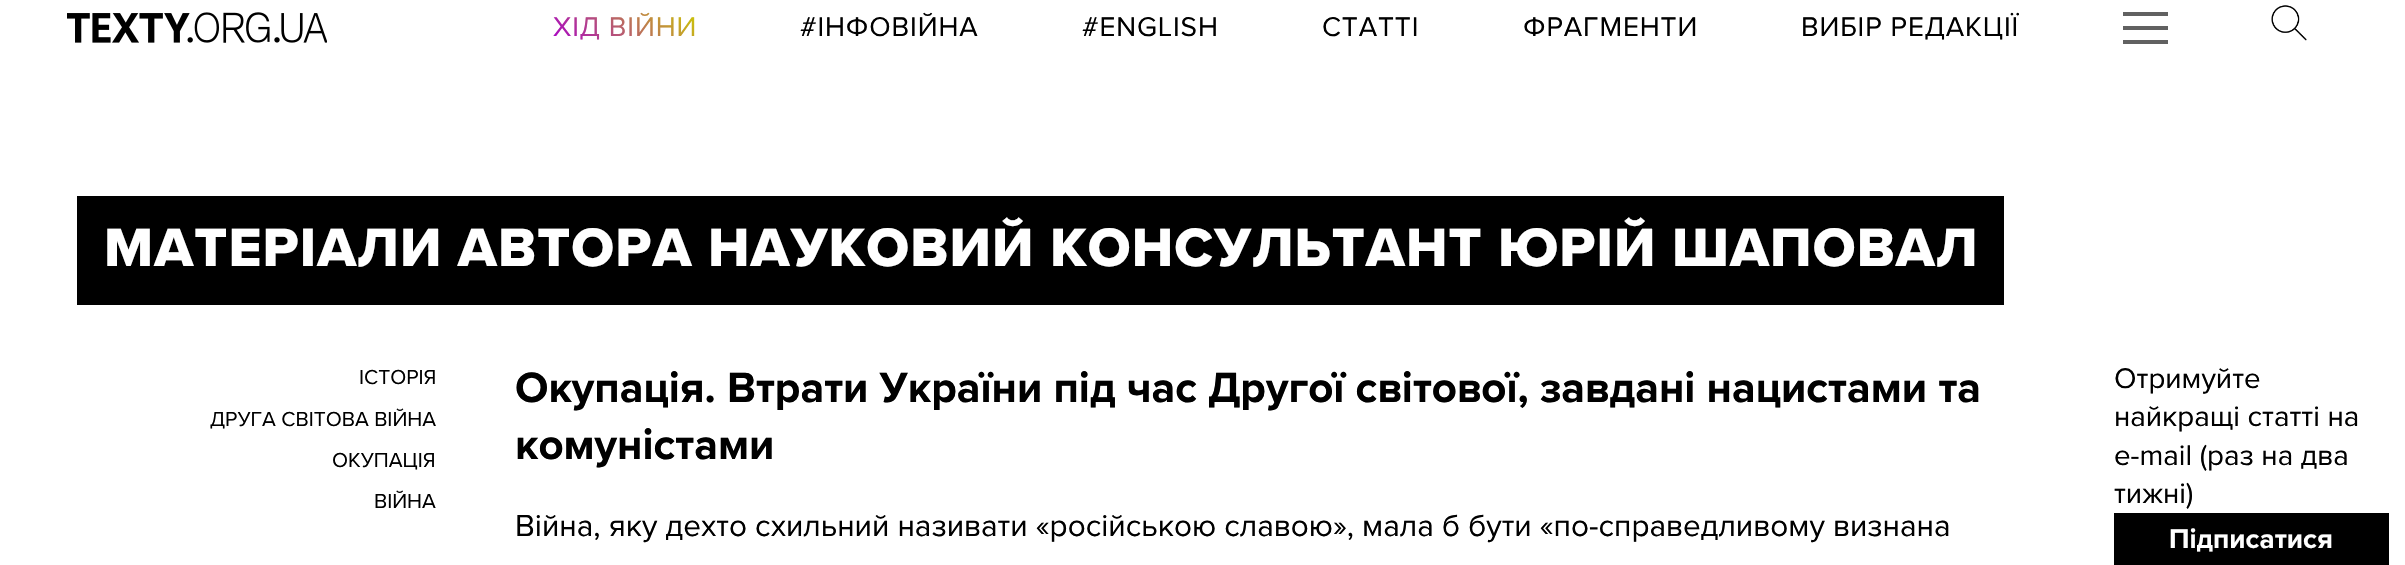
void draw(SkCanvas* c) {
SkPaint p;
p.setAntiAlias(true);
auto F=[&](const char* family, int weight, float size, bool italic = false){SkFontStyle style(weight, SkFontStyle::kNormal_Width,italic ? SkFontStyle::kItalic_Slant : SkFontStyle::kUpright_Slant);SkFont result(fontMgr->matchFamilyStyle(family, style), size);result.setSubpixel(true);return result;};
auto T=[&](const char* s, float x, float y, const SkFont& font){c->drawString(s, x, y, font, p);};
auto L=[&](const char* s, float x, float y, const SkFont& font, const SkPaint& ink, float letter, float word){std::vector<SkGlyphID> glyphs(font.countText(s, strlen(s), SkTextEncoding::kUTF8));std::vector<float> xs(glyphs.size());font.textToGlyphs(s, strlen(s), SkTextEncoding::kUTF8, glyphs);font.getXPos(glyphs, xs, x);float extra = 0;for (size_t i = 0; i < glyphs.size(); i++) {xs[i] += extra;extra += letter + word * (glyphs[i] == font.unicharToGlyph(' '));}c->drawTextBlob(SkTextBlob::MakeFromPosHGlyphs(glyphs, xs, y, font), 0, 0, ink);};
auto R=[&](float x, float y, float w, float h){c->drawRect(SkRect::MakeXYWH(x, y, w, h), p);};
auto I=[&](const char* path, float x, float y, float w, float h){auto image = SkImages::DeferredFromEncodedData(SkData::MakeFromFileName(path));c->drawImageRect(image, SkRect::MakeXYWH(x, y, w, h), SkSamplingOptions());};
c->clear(0xffffffff);
I("1.png",67,12,260,31);
auto f1 = F("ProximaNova",400,28);
{
const SkColor colors[] = {0xffa800cc,0xffcccb00};
const float stops[] = {0,1};
const SkPoint ends[] = {{580,72}, {670,-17}};
p.setShader(SkGradientShader::MakeLinear(ends, colors, stops, 2, SkTileMode::kClamp));
p.setAlpha(255);
}
L("ХІД ВІЙНИ",553,36,f1,p,.9,0);
p.setShader(nullptr);
p.setColor(0xff000000);
L("#ІНФОВІЙНА",800,36,f1,p,.9,0);
L("#ENGLISH",1082,36,f1,p,.9,0);
L("СТАТТІ",1322,36,f1,p,.9,0);
L("ФРАГМЕНТИ",1523,36,f1,p,.9,0);
L("ВИБІР РЕДАКЦІЇ",1801,36,f1,p,.9,0);
p.setColor(0xff616161);
R(2123,26,45,4);
R(2123,12,45,4);
R(2123,40,45,4);
I("2.png",2271,5,36,36);
p.setColor(0xff000000);
R(77,196,1927,109);
auto f2 = F("Proxima Nova",800,56);
p.setColor(0xffffffff);
L("МАТЕРІАЛИ АВТОРА НАУКОВИЙ КОНСУЛЬТАНТ ЮРІЙ ШАПОВАЛ",104,266,f2,p,1.12,0);
auto f3 = F("ProximaNova",400,21);
p.setColor(0xff000000);
T("ІСТОРІЯ",359,384,f3);
T("ДРУГА СВІТОВА ВІЙНА",210,426,f3);
T("ОКУПАЦІЯ",332,467,f3);
T("ВІЙНА",374,508,f3);
auto f4 = F("ProximaNova",700,43.75);
T("Окупація. Втрати України під час Другої світової, завдані нацистами та",515,402,f4);
T("комуністами",515,459,f4);
auto f5 = F("ProximaNova",400,31.5);
T("Війна, яку дехто схильний називати «російською славою», мала б бути «по-справедливому визнана",515,536,f5);
auto f6 = F("ProximaNova",400,29.5);
T("Отримуйте",2114,388,f6);
T("найкращі статті на",2114,426,f6);
T("e-mail (раз на два",2114,465,f6);
T("тижні)",2114,503,f6);
R(2114,513,275,52);
auto f7 = F("ProximaNova",700,28);
p.setColor(0xffffffff);
T("Підписатися",2169,548,f7);
}
